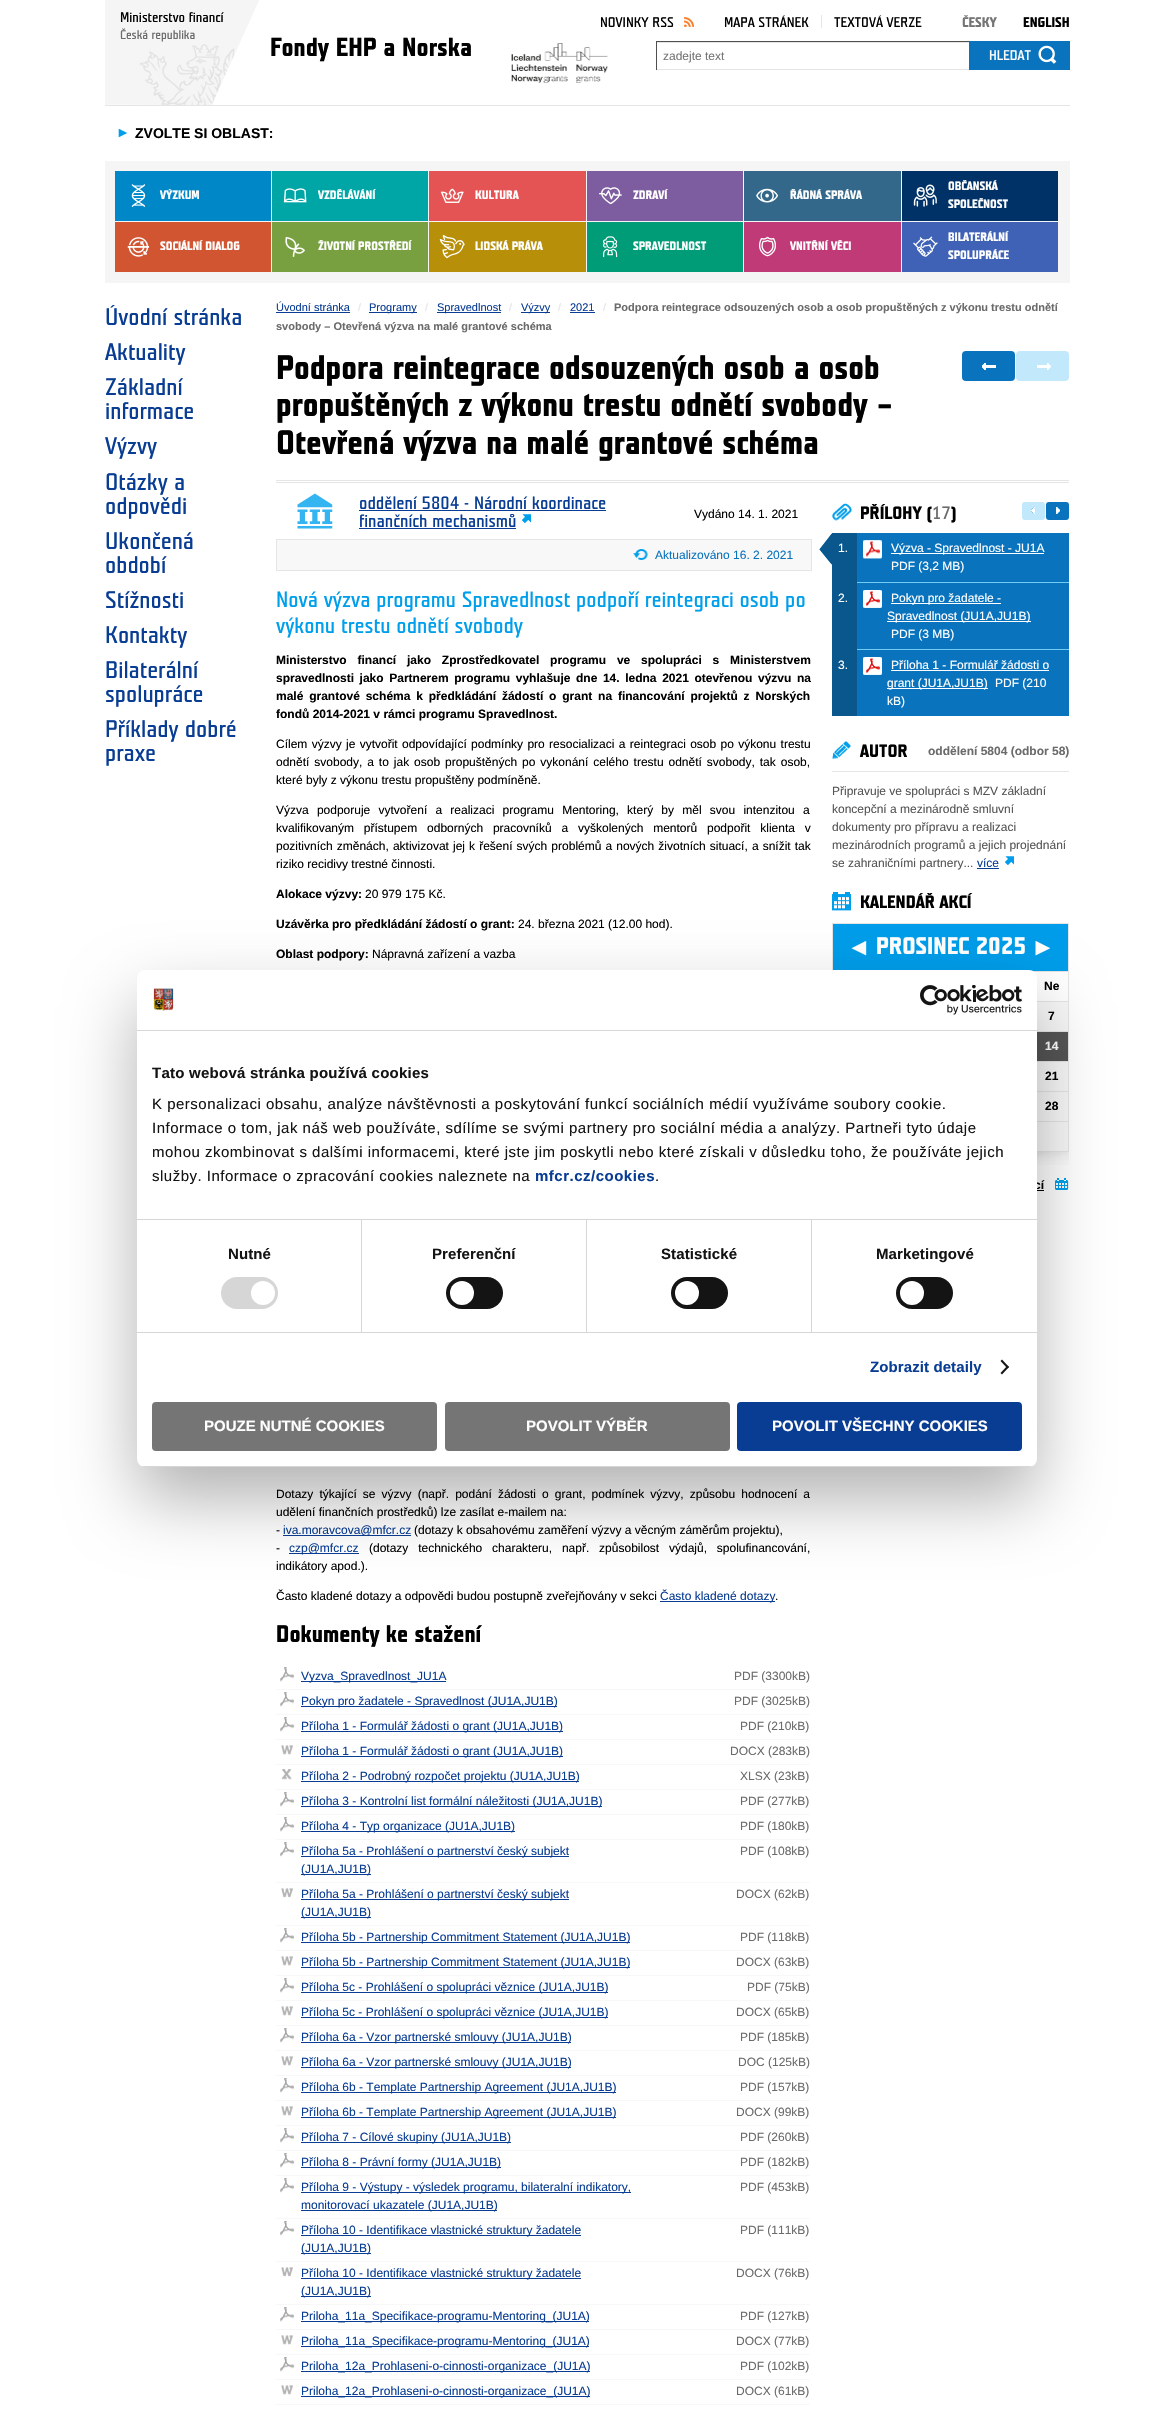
void draw(SkCanvas* c) {
SkPaint p;
p.setAntiAlias(true);
auto F=[&](const char* family, int weight, float size, bool italic = false){SkFontStyle style(weight, SkFontStyle::kNormal_Width,italic ? SkFontStyle::kItalic_Slant : SkFontStyle::kUpright_Slant);SkFont result(fontMgr->matchFamilyStyle(family, style), size);result.setSubpixel(true);return result;};
auto T=[&](const char* s, float x, float y, const SkFont& font){c->drawString(s, x, y, font, p);};
auto L=[&](const char* s, float x, float y, const SkFont& font, const SkPaint& ink, float letter, float word){std::vector<SkGlyphID> glyphs(font.countText(s, strlen(s), SkTextEncoding::kUTF8));std::vector<float> xs(glyphs.size());font.textToGlyphs(s, strlen(s), SkTextEncoding::kUTF8, glyphs);font.getXPos(glyphs, xs, x);float extra = 0;for (size_t i = 0; i < glyphs.size(); i++) {xs[i] += extra;extra += letter + word * (glyphs[i] == font.unicharToGlyph(' '));}c->drawTextBlob(SkTextBlob::MakeFromPosHGlyphs(glyphs, xs, y, font), 0, 0, ink);};
auto R=[&](float x, float y, float w, float h){c->drawRect(SkRect::MakeXYWH(x, y, w, h), p);};
auto Q=[&](float x, float y, float w, float h, float radius){c->drawRoundRect(SkRect::MakeXYWH(x, y, w, h), radius, radius, p);};
auto I=[&](const char* path, float x, float y, float w, float h){auto image = SkImages::DeferredFromEncodedData(SkData::MakeFromFileName(path));c->drawImageRect(image, SkRect::MakeXYWH(x, y, w, h), SkSamplingOptions());};
auto P=[&](const char* data, bool evenOdd = false){SkPath result = *SkParsePath::FromSVGString(data);if (evenOdd) result.setFillType(SkPathFillType::kEvenOdd);return result;};
c->clear(0xffffffff);
p.setColor(0xffe5e5e5);
R(105,105,965,1);
I("1.png",105,0,154,105);
auto f1 = F("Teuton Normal",400,14);
p.setColor(0xff000000);
T("Ministerstvo financí",120,22,f1);
auto f2 = F("Teuton Normal",400,12.5);
p.setColor(0xff6b6b6b);
T("Česká republika",120,39,f2);
p.setColor(0xff000000);
T("NOVINKY RSS",600,27,f1);
I("2.png",684,17,10,10);
T("MAPA STRÁNEK",724,27,f1);
T("TEXTOVÁ VERZE",834,27,f1);
p.setColor(0xffe5e5e5);
R(821,15,1,13);
auto f3 = F("Teuton Normal",700,14);
p.setColor(0xff757575);
T("ČESKY",962,27,f3);
p.setColor(0xff000000);
T("ENGLISH",1023,27,f3);
auto f4 = F("Teuton Normal",700,26);
T("Fondy EHP a Norska",270,56,f4);
I("3.png",511,43,97,40);
p.setColor(0xffe6e6e6);
R(657,42,312,1);
p.setColor(0xff4f4f4f);
R(656,41,313,1);
p.setColor(0xffe5e5e5);
R(656,69,313,1);
p.setColor(0xff4f4f4f);
R(656,41,1,29);
auto f5 = F("Liberation Sans",400,12);
p.setColor(0xff757575);
T("zadejte text",663,60,f5);
p.setColor(0xff0a73bd);
R(969,41,101,29);
I("4.png",1038,45,19,19);
p.setColor(0xffffffff);
T("HLEDAT",989,60,f1);
auto f6 = F("Liberation Sans",700,14);
p.setColor(0xff009feb);
T("►",116,137,f6);
p.setColor(0xff000000);
T("ZVOLTE SI OBLAST:",135,138,f6);
p.setColor(0xfff5f5f5);
R(105,161,965,122);
p.setColor(0xff0087c8);
R(115,171,156,50);
I("5.png",131,184,15,23);
auto f7 = F("Teuton Normal",700,12);
p.setColor(0xffffffff);
T("VÝZKUM",160,199,f7);
p.setColor(0xff00a5a5);
R(272,171,156,50);
I("6.png",283,188,24,15);
p.setColor(0xffffffff);
T("VZDĚLÁVÁNÍ",318,199,f7);
p.setColor(0xffe55454);
R(429,171,157,50);
I("7.png",440,188,24,15);
p.setColor(0xffffffff);
T("KULTURA",475,199,f7);
p.setColor(0xff7d5d9f);
R(587,171,156,50);
I("8.png",599,187,23,18);
p.setColor(0xffffffff);
T("ZDRAVÍ",633,199,f7);
p.setColor(0xff33688a);
R(744,171,157,50);
I("9.png",756,188,22,15);
p.setColor(0xffffffff);
T("ŘÁDNÁ SPRÁVA",790,199,f7);
p.setColor(0xff003267);
R(902,171,156,50);
I("10.png",913,184,24,23);
p.setColor(0xffffffff);
T("OBČANSKÁ",948,190,f7);
T("SPOLEČNOST",948,208,f7);
p.setColor(0xffd15531);
R(115,222,156,50);
I("11.png",127,237,23,20);
p.setColor(0xffffffff);
T("SOCIÁLNÍ DIALOG",160,250,f7);
p.setColor(0xff78a041);
R(272,222,156,50);
I("12.png",285,237,20,20);
p.setColor(0xffffffff);
T("ŽIVOTNÍ PROSTŘEDÍ",318,250,f7);
p.setColor(0xffb78f09);
R(429,222,157,50);
I("13.png",439,234,26,25);
p.setColor(0xffffffff);
T("LIDSKÁ PRÁVA",475,250,f7);
p.setColor(0xff009c77);
R(587,222,156,50);
I("14.png",603,236,15,22);
p.setColor(0xffffffff);
T("SPRAVEDLNOST",633,250,f7);
p.setColor(0xffc03a77);
R(744,222,157,50);
I("15.png",758,236,18,21);
p.setColor(0xffffffff);
T("VNITŘNÍ VĚCI",790,250,f7);
p.setColor(0xff3f62b6);
R(902,222,156,50);
I("16.png",913,236,25,21);
p.setColor(0xffffffff);
T("BILATERÁLNÍ",948,241,f7);
T("SPOLUPRÁCE",948,259,f7);
auto f8 = F("Teuton Normal",400,24);
p.setColor(0xff093d93);
T("Úvodní stránka",105,325,f8);
T("Aktuality",105,360,f8);
T("Základní",105,395,f8);
T("informace",105,419,f8);
T("Výzvy",105,454,f8);
T("Otázky a",105,490,f8);
T("odpovědi",105,514,f8);
T("Ukončená",105,549,f8);
T("období",105,573,f8);
T("Stížnosti",105,608,f8);
T("Kontakty",105,643,f8);
T("Bilaterální",105,678,f8);
T("spolupráce",105,702,f8);
T("Příklady dobré",105,737,f8);
T("praxe",105,761,f8);
auto f9 = F("Liberation Sans",400,11);
T("Úvodní stránka",276,311,f9);
R(276,312,74,1);
p.setColor(0xffe5e5e5);
T("/",358,311,f9);
p.setColor(0xff093d93);
R(369,312,48,1);
T("Programy",369,311,f9);
p.setColor(0xffe5e5e5);
T("/",425,311,f9);
p.setColor(0xff093d93);
R(437,312,64,1);
T("Spravedlnost",437,311,f9);
p.setColor(0xffe5e5e5);
T("/",509,311,f9);
p.setColor(0xff093d93);
R(521,312,29,1);
T("Výzvy",521,311,f9);
p.setColor(0xffe5e5e5);
T("/",558,311,f9);
p.setColor(0xff093d93);
T("2021",570,311,f9);
R(570,312,25,1);
p.setColor(0xffe5e5e5);
T("/",603,311,f9);
auto f10 = F("Liberation Sans",700,11);
p.setColor(0xff6b6b6b);
T("Podpora reintegrace odsouzených osob a osob propuštěných z výkonu trestu odnětí",614,311,f10);
T("svobody – Otevřená výzva na malé grantové schéma",276,330,f10);
p.setColor(0xffe5e5e5);
R(276,480,793,1);
R(276,482,793,1);
auto f11 = F("Teuton Normal",700,34);
p.setColor(0xff000000);
T("Podpora reintegrace odsouzených osob a osob",276,379,f11);
T("propuštěných z výkonu trestu odnětí svobody –",276,416,f11);
T("Otevřená výzva na malé grantové schéma",276,454,f11);
p.setColor(0xff0a73bd);
Q(962,351,53,30,4);
I("17.png",982,363,14,7);
p.setColor(0xffc2e8fb);
Q(1016,351,53,30,4);
I("18.png",1037,363,14,7);
I("19.png",297,493,36,36);
auto f12 = F("Teuton Normal",400,18);
p.setColor(0xff093d93);
T("oddělení 5804 - Národní koordinace",359,509,f12);
R(359,510,247,1);
T("finančních mechanismů",359,527,f12);
R(359,528,157,1);
I("20.png",522,514,9,9);
p.setColor(0xff000000);
T("Vydáno 14. 1. 2021",694,518,f5);
p.setColor(0xfff8f8f8);
c->drawRect(SkRect::MakeXYWH(276.5,539.5,535,31),p);
p.setStroke(true);
p.setStrokeWidth(1);
p.setColor(0xffe5e5e5);
c->drawRect(SkRect::MakeXYWH(276.5,539.5,535,31),p);
I("21.png",633,549,15,11);
p.setStroke(false);
p.setColor(0xff0a73bd);
T("Aktualizováno 16. 2. 2021",655,559,f5);
auto f13 = F("Teuton Normal",400,22);
p.setColor(0xff009feb);
T("Nová výzva programu Spravedlnost podpoří reintegraci osob po",276,607,f13);
T("výkonu trestu odnětí svobody",276,633,f13);
auto f14 = F("Liberation Sans",700,12);
p.setColor(0xff000000);
L("Ministerstvo financí jako Zprostředkovatel programu ve spolupráci s Ministerstvem",276,664,f14,p,0,7.5);
L("spravedlnosti jako Partnerem programu vyhlašuje dne 14. ledna 2021 otevřenou výzvu na",276,682,f14,p,0,2.25);
L("malé grantové schéma k předkládání žádostí o grant na financování projektů z Norských",276,700,f14,p,0,2.5);
T("fondů 2014-2021 v rámci programu Spravedlnost.",276,718,f14);
L("Cílem výzvy je vytvořit odpovídající podmínky pro resocializaci a reintegraci osob po výkonu trestu",276,748,f5,p,0,1);
L("odnětí svobody, a to jak osob propuštěných po vykonání celého trestu odnětí svobody, tak osob,",276,766,f5,p,0,1.6);
T("které byly z výkonu trestu propuštěny podmíněně.",276,784,f5);
L("Výzva podporuje vytvoření a realizaci programu Mentoring, který by měl svou intenzitou a",276,814,f5,p,0,4.9);
L("kvalifikovaným přístupem odborných pracovníků a vyškolených mentorů podpořit klienta v",276,832,f5,p,0,6.5);
L("pozitivních změnách, aktivizovat jej k řešení svých problémů a nových životních situací, a snížit tak",276,850,f5,p,0,.75);
T("riziko recidivy trestné činnosti.",276,868,f5);
T("Alokace výzvy:",276,898,f14);
T("20 979 175 Kč.",365,898,f5);
T("Uzávěrka pro předkládání žádostí o grant:",276,928,f14);
T("24. března 2021 (12.00 hod).",518,928,f5);
T("Oblast podpory:",276,958,f14);
T("Nápravná zařízení a vazba",372,958,f5);
L("Dotazy týkající se výzvy (např. podání žádosti o grant, podmínek výzvy, způsobu hodnocení a",276,1498,f5,p,0,2.75);
T("udělení finančních prostředků) lze zasílat e-mailem na:",276,1516,f5);
T("-",276,1534,f5);
p.setColor(0xff093d93);
R(283,1535,128,1);
T("iva.moravcova@mfcr.cz",283,1534,f5);
p.setColor(0xff000000);
T("(dotazy k obsahovému zaměření výzvy a věcným záměrům projektu),",414,1534,f5);
T("-",276,1552,f5);
p.setColor(0xff093d93);
R(289,1553,70,1);
T("czp@mfcr.cz",289,1552,f5);
p.setColor(0xff000000);
L("(dotazy technického charakteru, např. způsobilost výdajů, spolufinancování,",369,1552,f5,p,0,6.5);
T("indikátory apod.).",276,1570,f5);
T("Často kladené dotazy a odpovědi budou postupně zveřejňovány v sekci",276,1600,f5);
p.setColor(0xff093d93);
R(660,1601,115,1);
T("Často kladené dotazy",660,1600,f5);
p.setColor(0xff000000);
T(".",775,1600,f5);
auto f15 = F("Teuton Normal",700,24);
T("Dokumenty ke stažení",276,1642,f15);
I("22.png",280,1667,14,15);
p.setColor(0xfff8f8f8);
R(276,1689,534,1);
p.setColor(0xff093d93);
R(301,1681,145,1);
T("Vyzva_Spravedlnost_JU1A",301,1680,f5);
p.setColor(0xff6b6b6b);
T("PDF (3300kB)",734,1680,f5);
I("22.png",280,1692,14,15);
p.setColor(0xfff8f8f8);
R(276,1714,534,1);
p.setColor(0xff093d93);
R(301,1706,256,1);
T("Pokyn pro žadatele - Spravedlnost (JU1A,JU1B)",301,1705,f5);
p.setColor(0xff6b6b6b);
T("PDF (3025kB)",734,1705,f5);
I("22.png",280,1717,14,15);
p.setColor(0xfff8f8f8);
R(276,1739,534,1);
p.setColor(0xff093d93);
R(301,1731,262,1);
T("Příloha 1 - Formulář žádosti o grant (JU1A,JU1B)",301,1730,f5);
p.setColor(0xff6b6b6b);
T("PDF (210kB)",740,1730,f5);
I("23.png",281,1745,12,10);
p.setColor(0xfff8f8f8);
R(276,1764,534,1);
p.setColor(0xff093d93);
R(301,1756,262,1);
T("Příloha 1 - Formulář žádosti o grant (JU1A,JU1B)",301,1755,f5);
p.setColor(0xff6b6b6b);
T("DOCX (283kB)",730,1755,f5);
I("24.png",281,1769,11,11);
p.setColor(0xfff8f8f8);
R(276,1789,534,1);
p.setColor(0xff093d93);
R(301,1781,278,1);
T("Příloha 2 - Podrobný rozpočet projektu (JU1A,JU1B)",301,1780,f5);
p.setColor(0xff6b6b6b);
T("XLSX (23kB)",740,1780,f5);
I("22.png",280,1792,14,15);
p.setColor(0xfff8f8f8);
R(276,1814,534,1);
p.setColor(0xff093d93);
R(301,1806,301,1);
T("Příloha 3 - Kontrolní list formální náležitosti (JU1A,JU1B)",301,1805,f5);
p.setColor(0xff6b6b6b);
T("PDF (277kB)",740,1805,f5);
I("22.png",280,1817,14,15);
p.setColor(0xfff8f8f8);
R(276,1839,534,1);
p.setColor(0xff093d93);
R(301,1831,214,1);
T("Příloha 4 - Typ organizace (JU1A,JU1B)",301,1830,f5);
p.setColor(0xff6b6b6b);
T("PDF (180kB)",740,1830,f5);
I("25.png",280,1842,14,15);
p.setColor(0xfff8f8f8);
R(276,1882,534,1);
p.setColor(0xff093d93);
R(301,1856,268,1);
T("Příloha 5a - Prohlášení o partnerství český subjekt",301,1855,f5);
R(301,1874,70,1);
T("(JU1A,JU1B)",301,1873,f5);
p.setColor(0xff6b6b6b);
T("PDF (108kB)",740,1855,f5);
I("26.png",281,1888,12,10);
p.setColor(0xfff8f8f8);
R(276,1925,534,1);
p.setColor(0xff093d93);
R(301,1899,268,1);
T("Příloha 5a - Prohlášení o partnerství český subjekt",301,1898,f5);
R(301,1917,70,1);
T("(JU1A,JU1B)",301,1916,f5);
p.setColor(0xff6b6b6b);
T("DOCX (62kB)",736,1898,f5);
I("22.png",280,1928,14,15);
p.setColor(0xfff8f8f8);
R(276,1950,534,1);
p.setColor(0xff093d93);
R(301,1942,329,1);
T("Příloha 5b - Partnership Commitment Statement (JU1A,JU1B)",301,1941,f5);
p.setColor(0xff6b6b6b);
T("PDF (118kB)",740,1941,f5);
I("23.png",281,1956,12,10);
p.setColor(0xfff8f8f8);
R(276,1975,534,1);
p.setColor(0xff093d93);
R(301,1967,329,1);
T("Příloha 5b - Partnership Commitment Statement (JU1A,JU1B)",301,1966,f5);
p.setColor(0xff6b6b6b);
T("DOCX (63kB)",736,1966,f5);
I("22.png",280,1978,14,15);
p.setColor(0xfff8f8f8);
R(276,2000,534,1);
p.setColor(0xff093d93);
R(301,1992,307,1);
T("Příloha 5c - Prohlášení o spolupráci věznice (JU1A,JU1B)",301,1991,f5);
p.setColor(0xff6b6b6b);
T("PDF (75kB)",747,1991,f5);
I("23.png",281,2006,12,10);
p.setColor(0xfff8f8f8);
R(276,2025,534,1);
p.setColor(0xff093d93);
R(301,2017,307,1);
T("Příloha 5c - Prohlášení o spolupráci věznice (JU1A,JU1B)",301,2016,f5);
p.setColor(0xff6b6b6b);
T("DOCX (65kB)",736,2016,f5);
I("22.png",280,2028,14,15);
p.setColor(0xfff8f8f8);
R(276,2050,534,1);
p.setColor(0xff093d93);
R(301,2042,270,1);
T("Příloha 6a - Vzor partnerské smlouvy (JU1A,JU1B)",301,2041,f5);
p.setColor(0xff6b6b6b);
T("PDF (185kB)",740,2041,f5);
I("23.png",281,2056,12,10);
p.setColor(0xfff8f8f8);
R(276,2075,534,1);
p.setColor(0xff093d93);
R(301,2067,270,1);
T("Příloha 6a - Vzor partnerské smlouvy (JU1A,JU1B)",301,2066,f5);
p.setColor(0xff6b6b6b);
T("DOC (125kB)",738,2066,f5);
I("22.png",280,2078,14,15);
p.setColor(0xfff8f8f8);
R(276,2100,534,1);
p.setColor(0xff093d93);
R(301,2092,315,1);
T("Příloha 6b - Template Partnership Agreement (JU1A,JU1B)",301,2091,f5);
p.setColor(0xff6b6b6b);
T("PDF (157kB)",740,2091,f5);
I("23.png",281,2106,12,10);
p.setColor(0xfff8f8f8);
R(276,2125,534,1);
p.setColor(0xff093d93);
R(301,2117,315,1);
T("Příloha 6b - Template Partnership Agreement (JU1A,JU1B)",301,2116,f5);
p.setColor(0xff6b6b6b);
T("DOCX (99kB)",736,2116,f5);
I("22.png",280,2128,14,15);
p.setColor(0xfff8f8f8);
R(276,2150,534,1);
p.setColor(0xff093d93);
R(301,2142,210,1);
T("Příloha 7 - Cílové skupiny (JU1A,JU1B)",301,2141,f5);
p.setColor(0xff6b6b6b);
T("PDF (260kB)",740,2141,f5);
I("22.png",280,2153,14,15);
p.setColor(0xfff8f8f8);
R(276,2175,534,1);
p.setColor(0xff093d93);
R(301,2167,200,1);
T("Příloha 8 - Právní formy (JU1A,JU1B)",301,2166,f5);
p.setColor(0xff6b6b6b);
T("PDF (182kB)",740,2166,f5);
I("25.png",280,2178,14,15);
p.setColor(0xfff8f8f8);
R(276,2218,534,1);
p.setColor(0xff093d93);
R(301,2192,330,1);
T("Příloha 9 - Výstupy - výsledek programu, bilateralní indikatory,",301,2191,f5);
R(301,2210,196,1);
T("monitorovací ukazatele (JU1A,JU1B)",301,2209,f5);
p.setColor(0xff6b6b6b);
T("PDF (453kB)",740,2191,f5);
I("25.png",280,2221,14,15);
p.setColor(0xfff8f8f8);
R(276,2261,534,1);
p.setColor(0xff093d93);
R(301,2235,280,1);
T("Příloha 10 - Identifikace vlastnické struktury žadatele",301,2234,f5);
R(301,2253,70,1);
T("(JU1A,JU1B)",301,2252,f5);
p.setColor(0xff6b6b6b);
T("PDF (111kB)",740,2234,f5);
I("26.png",281,2267,12,10);
p.setColor(0xfff8f8f8);
R(276,2304,534,1);
p.setColor(0xff093d93);
R(301,2278,280,1);
T("Příloha 10 - Identifikace vlastnické struktury žadatele",301,2277,f5);
R(301,2296,70,1);
T("(JU1A,JU1B)",301,2295,f5);
p.setColor(0xff6b6b6b);
T("DOCX (76kB)",736,2277,f5);
I("22.png",280,2307,14,15);
p.setColor(0xfff8f8f8);
R(276,2329,534,1);
p.setColor(0xff093d93);
R(301,2321,288,1);
T("Priloha_11a_Specifikace-programu-Mentoring_(JU1A)",301,2320,f5);
p.setColor(0xff6b6b6b);
T("PDF (127kB)",740,2320,f5);
I("23.png",281,2335,12,10);
p.setColor(0xfff8f8f8);
R(276,2354,534,1);
p.setColor(0xff093d93);
R(301,2346,288,1);
T("Priloha_11a_Specifikace-programu-Mentoring_(JU1A)",301,2345,f5);
p.setColor(0xff6b6b6b);
T("DOCX (77kB)",736,2345,f5);
I("22.png",280,2357,14,15);
p.setColor(0xfff8f8f8);
R(276,2379,534,1);
p.setColor(0xff093d93);
R(301,2371,289,1);
T("Priloha_12a_Prohlaseni-o-cinnosti-organizace_(JU1A)",301,2370,f5);
p.setColor(0xff6b6b6b);
T("PDF (102kB)",740,2370,f5);
I("23.png",281,2385,12,10);
p.setColor(0xfff8f8f8);
R(276,2404,534,1);
p.setColor(0xff093d93);
R(301,2396,289,1);
T("Priloha_12a_Prohlaseni-o-cinnosti-organizace_(JU1A)",301,2395,f5);
p.setColor(0xff6b6b6b);
T("DOCX (61kB)",736,2395,f5);
I("27.png",832,503,20,18);
auto f16 = F("Teuton Normal",700,18);
p.setColor(0xff000000);
T("PŘÍLOHY (",860,519,f16);
p.setColor(0xff6b6b6b);
T("17",932,519,f12);
p.setColor(0xff000000);
T(")",951,519,f16);
p.setColor(0xffc2e8fb);
Q(1022,502,23,18,3);
I("28.png",1031,507,4,7);
p.setColor(0xff0a73bd);
Q(1046,502,23,18,3);
I("29.png",1056,507,4,7);
p.setColor(0xff09578d);
R(832,533,25,183);
I("30.png",819,533,13,32);
p.setColor(0xff0a73bd);
R(857,533,212,49);
I("31.png",863,540,19,19);
p.setColor(0xffffffff);
T("1.",838,552,f5);
R(891,553,153,1);
T("Výzva - Spravedlnost - JU1A",891,552,f5);
T("PDF (3,2 MB)",891,570,f5);
p.setColor(0xff0a73bd);
R(857,583,212,66);
I("32.png",863,590,19,18);
p.setColor(0xff71cbf5);
R(857,582,212,1);
p.setColor(0xffffffff);
T("2.",838,602,f5);
R(891,603,110,1);
T("Pokyn pro žadatele -",891,602,f5);
R(887,621,144,1);
T("Spravedlnost (JU1A,JU1B)",887,620,f5);
T("PDF (3 MB)",891,638,f5);
p.setColor(0xff0a73bd);
R(857,650,212,66);
I("32.png",863,657,19,18);
p.setColor(0xff71cbf5);
R(857,649,212,1);
p.setColor(0xffffffff);
T("3.",838,669,f5);
T("Příloha 1 - Formulář žádosti o",891,669,f5);
R(891,670,158,1);
R(887,688,101,1);
T("grant (JU1A,JU1B)",887,687,f5);
T("PDF (210",995,687,f5);
T("kB)",887,705,f5);
p.setColor(0xffe5e5e5);
R(832,771,237,1);
I("33.png",832,741,19,18);
p.setColor(0xff000000);
T("AUTOR",860,757,f16);
p.setColor(0xff6b6b6b);
T("oddělení 5804 (odbor 58)",928,755,f14);
p.setColor(0xff555555);
T("Připravuje ve spolupráci s MZV základní",832,795,f5);
T("koncepční a mezinárodně smluvní",832,813,f5);
T("dokumenty pro přípravu a realizaci",832,831,f5);
T("mezinárodních programů a jejich projednání",832,849,f5);
T("se zahraničními partnery...",832,867,f5);
p.setColor(0xff093d93);
T("více",977,867,f5);
R(977,868,22,1);
I("20.png",1005,856,9,9);
I("34.png",832,892,19,19);
p.setColor(0xff000000);
T("KALENDÁŘ AKCÍ",860,908,f16);
I("35.png",1037,1152,32,13);
p.setColor(0xff009dea);
R(833,924,235,47);
p.setColor(0xffe5e5e5);
R(832,923,237,1);
R(1032,971,37,1);
R(1033,1001,36,1);
R(1033,1031,36,1);
R(1033,1061,36,1);
R(1033,1091,36,1);
R(1033,1121,36,1);
R(1068,1121,1,31);
R(1068,1091,1,31);
R(1068,1061,1,31);
R(1068,1031,1,31);
R(1068,1001,1,31);
R(1068,971,1,31);
R(1068,923,1,49);
R(832,923,1,49);
auto f17 = F("Liberation Sans",700,24);
p.setColor(0xffffffff);
T("◄",847,955,f17);
T("PROSINEC 2025",876,954,f15);
T("►",1031,955,f17);
p.setColor(0xff000000);
T("Ne",1044,990,f14);
p.setColor(0xfff8f8f8);
R(1037,1002,31,29);
p.setColor(0xff000000);
T("7",1048,1020,f14);
p.setColor(0xff555555);
R(1037,1032,31,29);
p.setColor(0xffffffff);
T("14",1045,1050,f14);
p.setColor(0xfff8f8f8);
R(1037,1062,31,29);
p.setColor(0xff000000);
T("21",1045,1080,f14);
p.setColor(0xfff8f8f8);
R(1037,1092,31,29);
p.setColor(0xff000000);
T("28",1045,1110,f14);
p.setColor(0xfff8f8f8);
R(1037,1122,31,29);
p.setColor(0xffe5e5e5);
R(1033,1151,36,1);
I("36.png",1055,1178,14,12);
p.setColor(0xff000000);
T("cí",1034,1189,f14);
R(1037,1190,7,1);
p.setColor(0x4d000000);
p.setMaskFilter(SkMaskFilter::MakeBlur(kNormal_SkBlurStyle, 34));
c->drawRoundRect(SkRect::MakeXYWH(137,1002,900,497),8,8,p);
p.setMaskFilter(nullptr);
p.setColor(0xffffffff);
Q(137,970,900,497,8);
p.setColor(0xffd6d6d6);
R(137,1030,900,1);
I("37.png",153,988,21,23);
I("38.png",920,985,102,30);
R(137,1219,900,1);
auto f18 = F("Liberation Sans",700,15);
p.setColor(0xff141414);
L("Tato webová stránka používá cookies",152,1078,f18,p,.25,0);
auto f19 = F("Liberation Sans",400,15);
L("K personalizaci obsahu, analýze návštěvnosti a poskytování funkcí sociálních médií využíváme soubory cookie.",152,1109,f19,p,.5,0);
L("Informace o tom, jak náš web používáte, sdílíme se svými partnery pro sociální média a analýzy. Partneři tyto údaje",152,1133,f19,p,.5,0);
L("mohou zkombinovat s dalšími informacemi, které jste jim poskytli nebo které získali v důsledku toho, že používáte jejich",152,1157,f19,p,.5,0);
L("služby. Informace o zpracování cookies naleznete na",152,1181,f19,p,.5,0);
p.setColor(0xff093d93);
L("mfcr.cz/cookies",535,1181,f18,p,.5,0);
p.setColor(0xff141414);
L(".",655,1181,f19,p,.5,0);
p.setColor(0xffd6d6d6);
R(137,1332,900,1);
R(361,1220,1,112);
p.setColor(0xff141414);
L("Nutné",228,1259,f18,p,.1,0);
p.setColor(0xffd6d6d6);
Q(221,1277,57,32,16);
p.setColor(0xffffffff);
c->drawCircle(263,1293,12,p);
p.setColor(0xffd6d6d6);
R(586,1220,1,112);
p.setColor(0xff141414);
L("Preferenční",432,1259,f18,p,.1,0);
Q(446,1277,57,32,16);
p.setColor(0xffffffff);
c->drawCircle(462,1293,12,p);
p.setColor(0xffd6d6d6);
R(811,1220,1,112);
p.setColor(0xff141414);
L("Statistické",661,1259,f18,p,.1,0);
Q(671,1277,57,32,16);
p.setColor(0xffffffff);
c->drawCircle(687,1293,12,p);
p.setColor(0xff141414);
L("Marketingové",876,1259,f18,p,.1,0);
Q(896,1277,57,32,16);
p.setColor(0xffffffff);
c->drawCircle(912,1293,12,p);
p.setColor(0xff093d93);
L("Zobrazit detaily",870,1372,f18,p,.1,0);
p.setColor(0xff141414);
c->drawPath(P("M1002 1359.5l7 7.5l-1.5 1.5l-7-7.5z"),p);
c->drawPath(P("M1007.5 1365.5l1.5 1.5l-7 7.5l-1.5-1.5z"),p);
c->save();
c->clipPath(P("M145 970h884c4.5 0 8 3.5 8 8v481c0 4.5-3.5 8-8 8h-884c-4.5 0-8-3.5-8-8v-481c0-4.5 3.5-8 8-8z"),true);
p.setColor(0xffd6d6d6);
R(137,1466,900,1);
c->restore();
p.setColor(0xff757575);
c->drawRoundRect(SkRect::MakeXYWH(153,1403,283,47),3,3,p);
p.setStroke(true);
p.setStrokeWidth(2);
c->drawRoundRect(SkRect::MakeXYWH(153,1403,283,47),3,3,p);
p.setStroke(false);
p.setColor(0xffffffff);
T("POUZE NUTNÉ COOKIES",204,1431,f18);
p.setColor(0xff757575);
c->drawRoundRect(SkRect::MakeXYWH(446,1403,283,47),3,3,p);
p.setStroke(true);
c->drawRoundRect(SkRect::MakeXYWH(446,1403,283,47),3,3,p);
p.setStroke(false);
p.setColor(0xffffffff);
T("POVOLIT VÝBĚR",526,1431,f18);
p.setColor(0xff093d93);
c->drawRoundRect(SkRect::MakeXYWH(738,1403,283,47),3,3,p);
p.setStroke(true);
c->drawRoundRect(SkRect::MakeXYWH(738,1403,283,47),3,3,p);
p.setStroke(false);
p.setColor(0xffffffff);
T("POVOLIT VŠECHNY COOKIES",772,1431,f18);
}
